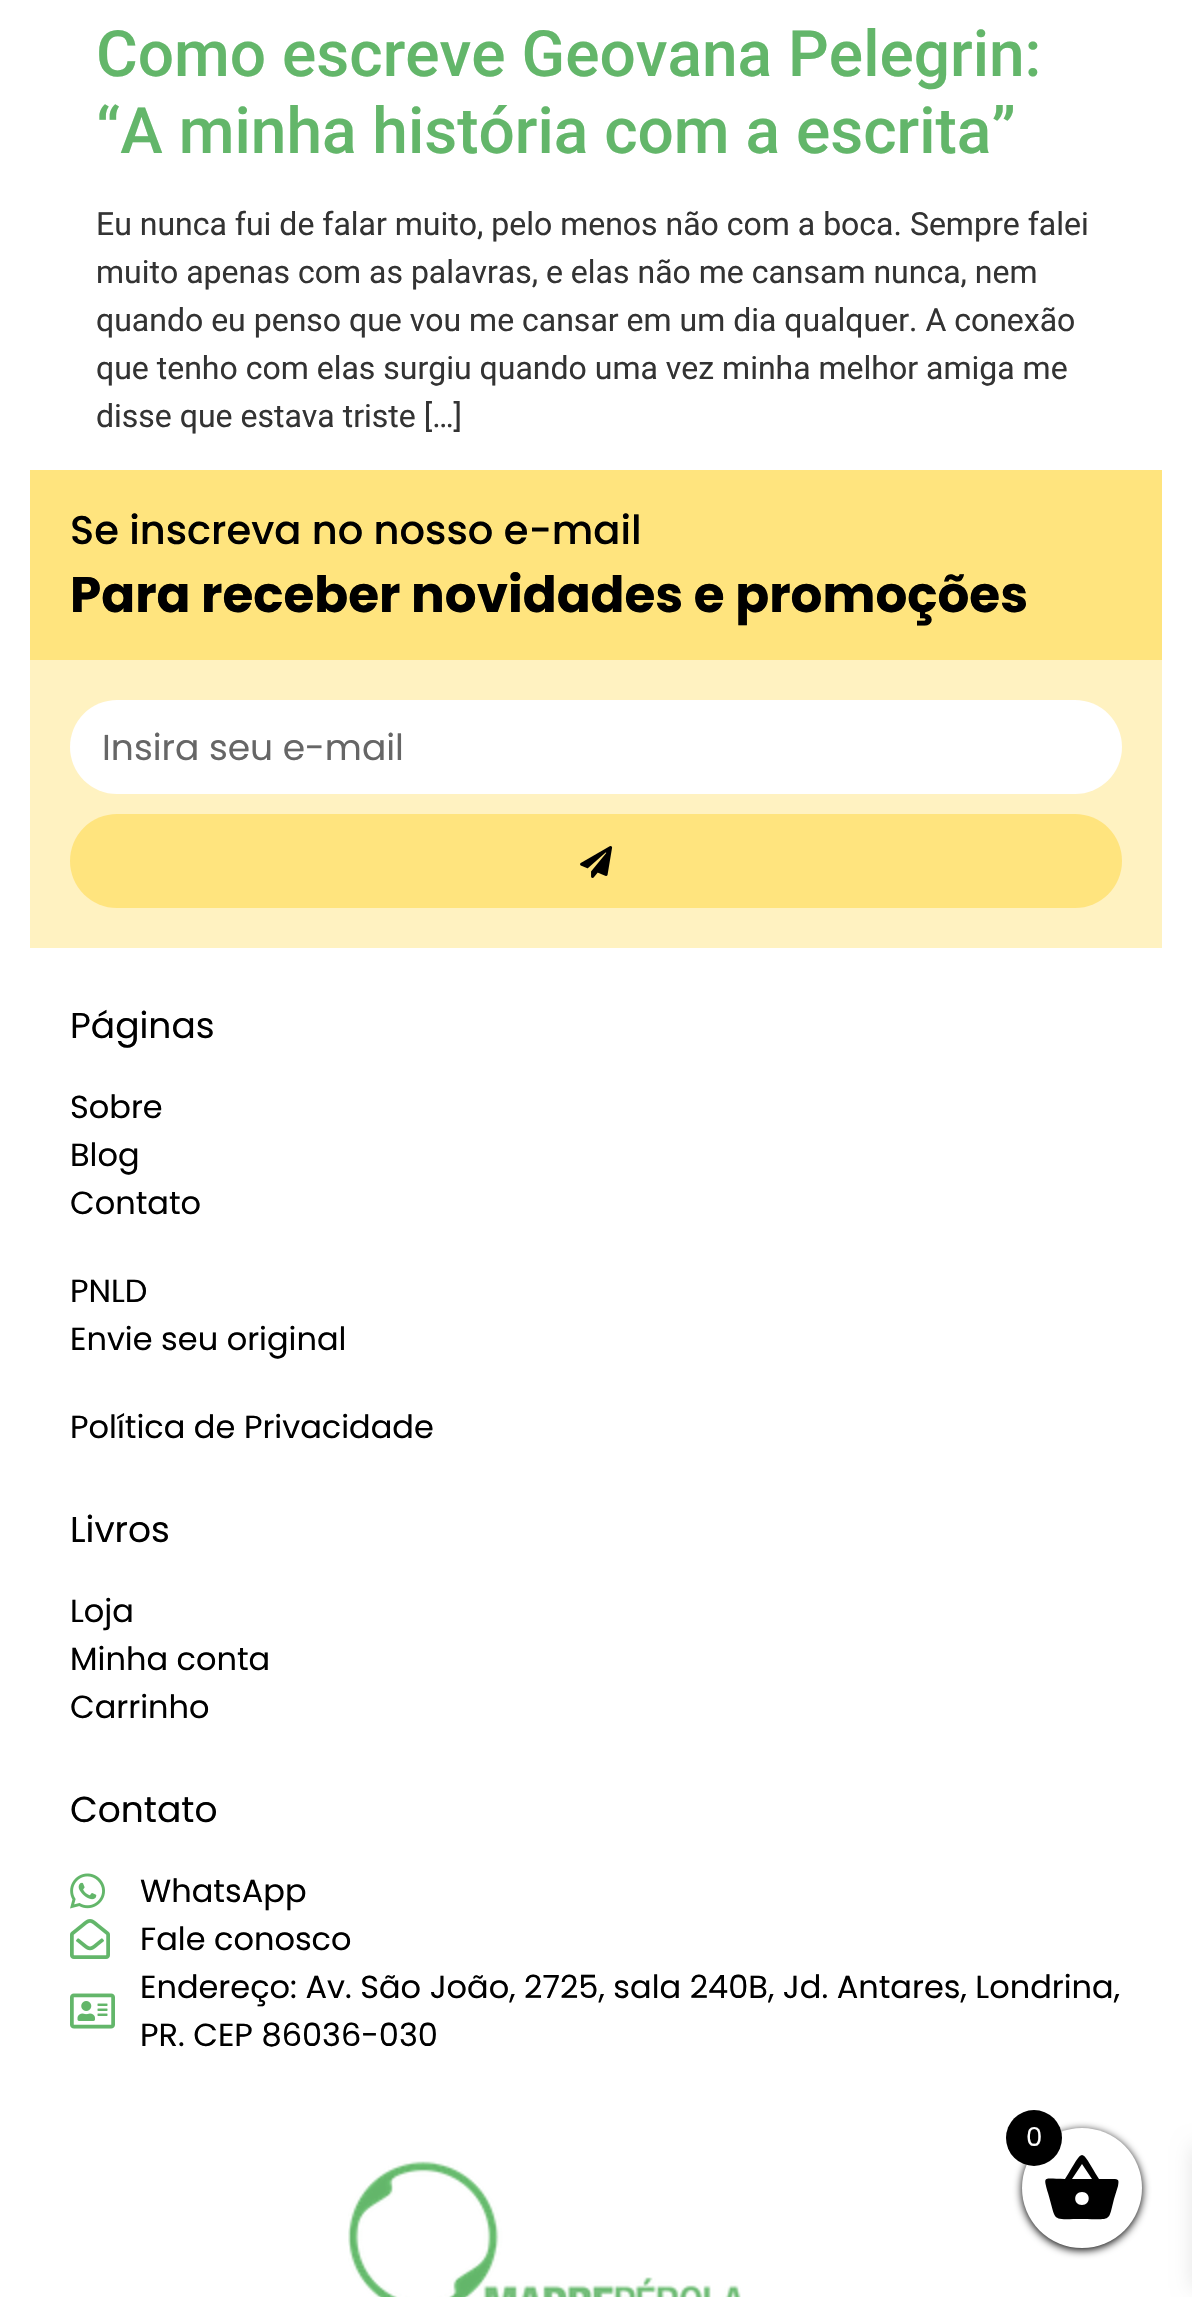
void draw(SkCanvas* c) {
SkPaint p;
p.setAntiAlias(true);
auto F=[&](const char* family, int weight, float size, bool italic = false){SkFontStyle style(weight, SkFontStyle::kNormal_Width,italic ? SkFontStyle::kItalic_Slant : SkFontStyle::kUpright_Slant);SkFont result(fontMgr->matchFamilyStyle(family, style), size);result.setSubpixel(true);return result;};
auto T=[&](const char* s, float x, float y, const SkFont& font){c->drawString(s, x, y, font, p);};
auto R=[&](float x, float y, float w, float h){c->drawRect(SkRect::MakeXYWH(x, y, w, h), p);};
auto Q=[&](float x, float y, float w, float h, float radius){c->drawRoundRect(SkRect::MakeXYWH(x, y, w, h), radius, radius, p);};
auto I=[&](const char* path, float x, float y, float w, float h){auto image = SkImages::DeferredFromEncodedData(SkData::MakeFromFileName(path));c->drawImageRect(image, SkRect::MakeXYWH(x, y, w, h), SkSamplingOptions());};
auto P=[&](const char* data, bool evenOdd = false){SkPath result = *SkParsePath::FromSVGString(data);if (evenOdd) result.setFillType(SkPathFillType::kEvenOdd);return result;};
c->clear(0xffffffff);
auto f1 = F("Roboto",500,64);
p.setColor(0xff63b66a);
T("Como escreve Geovana Pelegrin:",96,76,f1);
T("“A minha história com a escrita”",96,153,f1);
auto f2 = F("Roboto",400,32);
p.setColor(0xff333333);
T("Eu nunca fui de falar muito, pelo menos não com a boca. Sempre falei",96,235,f2);
T("muito apenas com as palavras, e elas não me cansam nunca, nem",96,283,f2);
T("quando eu penso que vou me cansar em um dia qualquer. A conexão",96,331,f2);
T("que tenho com elas surgiu quando uma vez minha melhor amiga me",96,379,f2);
T("disse que estava triste […]",96,427,f2);
p.setColor(0xffffe47e);
R(30,470,1132,190);
auto f3 = F("Poppins",500,40);
p.setColor(0xff000000);
T("Se inscreva no nosso e-mail",70,544,f3);
auto f4 = F("Poppins",700,50);
T("Para receber novidades e promoções",70,612,f4);
p.setColor(0xfffff2c1);
R(30,660,1132,288);
p.setColor(0xffffffff);
Q(70,700,1052,94,47);
auto f5 = F("Poppins",400,36);
p.setColor(0xff666666);
T("Insira seu e-mail",102,760,f5);
p.setColor(0xffffe47e);
Q(70,814,1052,94,47);
I("1.png",580,846,33,32);
p.setColor(0xff000000);
T("Páginas",70,1038,f5);
auto f6 = F("Poppins",400,32);
T("Sobre",70,1118,f6);
T("Blog",70,1166,f6);
T("Contato",70,1214,f6);
T("PNLD",70,1302,f6);
T("Envie seu original",70,1350,f6);
T("Política de Privacidade",70,1438,f6);
T("Livros",70,1542,f5);
T("Loja",70,1622,f6);
T("Minha conta",70,1670,f6);
T("Carrinho",70,1718,f6);
T("Contato",70,1822,f5);
I("2.png",70,1873,35,36);
T("WhatsApp",140,1902,f6);
I("3.png",70,1919,40,40);
T("Fale conosco",140,1950,f6);
I("4.png",70,1993,45,36);
T("Endereço: Av. São João, 2725, sala 240B, Jd. Antares, Londrina,",140,1998,f6);
T("PR. CEP 86036-030",140,2046,f6);
I("5.png",348,2161,393,136);
p.setMaskFilter(SkMaskFilter::MakeBlur(kNormal_SkBlurStyle, 4));
c->drawRoundRect(SkRect::MakeXYWH(1022,2130,120,120),60,60,p);
p.setMaskFilter(nullptr);
p.setColor(0xffffffff);
c->drawCircle(1082,2188,60,p);
p.setColor(0xff000000);
c->drawPath(P("M1082 2205c9 0 9-13 0-13c-9 0-9 13 0 13zm-10-26h20l-10-15zm27 0h14c6 0 6 1 5 7l-4 13c-6 24-2 20-32 20c-32 0-25 4-34-26c-5-18-5-14 17-14c20-32 14-32 34 0z"),p);
c->drawCircle(1034,2138,28,p);
auto f7 = F("Poppins",400,26);
p.setColor(0xffffffff);
T("0",1026,2146,f7);
p.setColor(0x1a000000);
p.setMaskFilter(SkMaskFilter::MakeBlur(kNormal_SkBlurStyle, 10));
c->drawRect(SkRect::MakeXYWH(1192,2146,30,142),p);
p.setMaskFilter(nullptr);
}
